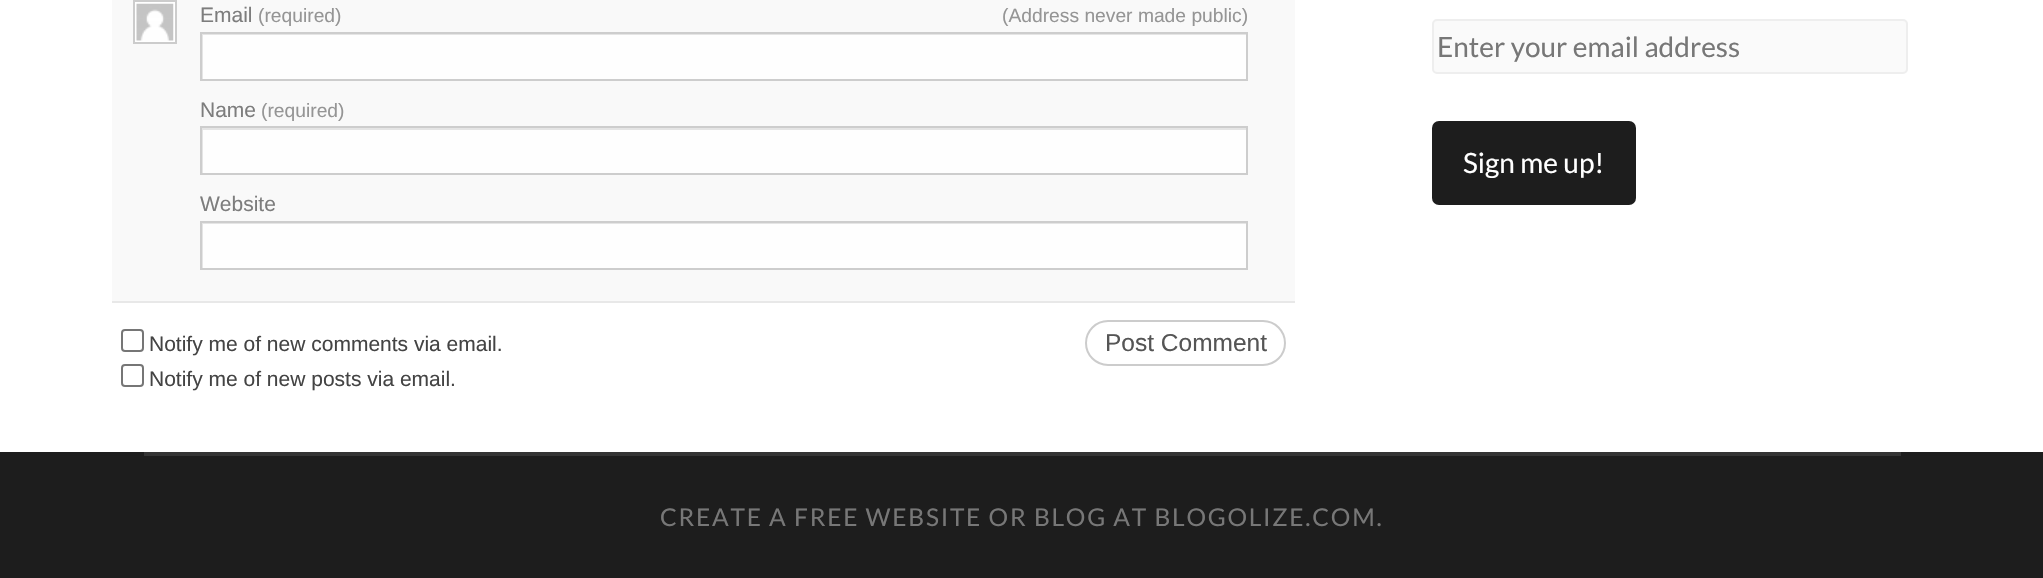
void draw(SkCanvas* c) {
SkPaint p;
p.setAntiAlias(true);
auto F=[&](const char* family, int weight, float size, bool italic = false){SkFontStyle style(weight, SkFontStyle::kNormal_Width,italic ? SkFontStyle::kItalic_Slant : SkFontStyle::kUpright_Slant);SkFont result(fontMgr->matchFamilyStyle(family, style), size);result.setSubpixel(true);return result;};
auto T=[&](const char* s, float x, float y, const SkFont& font){c->drawString(s, x, y, font, p);};
auto L=[&](const char* s, float x, float y, const SkFont& font, const SkPaint& ink, float letter, float word){std::vector<SkGlyphID> glyphs(font.countText(s, strlen(s), SkTextEncoding::kUTF8));std::vector<float> xs(glyphs.size());font.textToGlyphs(s, strlen(s), SkTextEncoding::kUTF8, glyphs);font.getXPos(glyphs, xs, x);float extra = 0;for (size_t i = 0; i < glyphs.size(); i++) {xs[i] += extra;extra += letter + word * (glyphs[i] == font.unicharToGlyph(' '));}c->drawTextBlob(SkTextBlob::MakeFromPosHGlyphs(glyphs, xs, y, font), 0, 0, ink);};
auto R=[&](float x, float y, float w, float h){c->drawRect(SkRect::MakeXYWH(x, y, w, h), p);};
auto Q=[&](float x, float y, float w, float h, float radius){c->drawRoundRect(SkRect::MakeXYWH(x, y, w, h), radius, radius, p);};
auto I=[&](const char* path, float x, float y, float w, float h){auto image = SkImages::DeferredFromEncodedData(SkData::MakeFromFileName(path));c->drawImageRect(image, SkRect::MakeXYWH(x, y, w, h), SkSamplingOptions());};
auto P=[&](const char* data, bool evenOdd = false){SkPath result = *SkParsePath::FromSVGString(data);if (evenOdd) result.setFillType(SkPathFillType::kEvenOdd);return result;};
c->clear(0xffffffff);
p.setColor(0xfff9f9f9);
R(112,0,1183,301);
p.setColor(0xffe8e8e8);
R(112,301,1183,2);
p.setColor(0xffffffff);
c->drawRect(SkRect::MakeXYWH(134,1,42,42),p);
p.setStroke(true);
p.setStrokeWidth(2);
p.setColor(0xffcccccc);
c->drawRect(SkRect::MakeXYWH(134,1,42,42),p);
I("1.png",136,3,38,38);
auto f1 = F("Liberation Sans",400,21);
p.setStroke(false);
p.setColor(0xff7d7d7d);
T("Email",200,22,f1);
auto f2 = F("Liberation Sans",400,19.25);
p.setColor(0xff959595);
T("(required)",258,22,f2);
T("(Address never made public)",1002,22,f2);
p.setColor(0xfffefefe);
R(203,35,1043,44);
c->save();
c->clipRect(SkRect::MakeXYWH(201,33,1045,46));
p.setColor(0xffe5e5e5);
c->drawPath(P("M28-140h1391v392h-1391zm175 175h1045v45h-1045z",true),p);
c->restore();
p.setStroke(true);
p.setColor(0xffcdcdcd);
c->drawRect(SkRect::MakeXYWH(201,33,1046,47),p);
p.setStroke(false);
p.setColor(0xff7d7d7d);
T("Name",200,117,f1);
p.setColor(0xff959595);
T("(required)",261,117,f2);
p.setColor(0xfffefefe);
R(203,130,1043,43);
c->save();
c->clipRect(SkRect::MakeXYWH(201,128,1045,45));
p.setColor(0xffe5e5e5);
c->drawPath(P("M28-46h1391v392h-1391zm175 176h1045v45h-1045z",true),p);
c->restore();
p.setStroke(true);
p.setColor(0xffcdcdcd);
c->drawRect(SkRect::MakeXYWH(201,127,1046,47),p);
p.setStroke(false);
p.setColor(0xff7d7d7d);
T("Website",200,211,f1);
p.setColor(0xfffefefe);
R(203,224,1043,44);
c->save();
c->clipRect(SkRect::MakeXYWH(201,222,1045,46));
p.setColor(0xffe5e5e5);
c->drawPath(P("M28 49h1391v392h-1391zm175 175h1045v46h-1045z",true),p);
c->restore();
p.setStroke(true);
p.setColor(0xffcdcdcd);
c->drawRect(SkRect::MakeXYWH(201,222,1046,47),p);
p.setColor(0xff767676);
c->drawRoundRect(SkRect::MakeXYWH(122,330,21,21),3,3,p);
p.setStroke(false);
p.setColor(0xff444444);
T("Notify me of new comments via email.",149,351,f1);
p.setStroke(true);
p.setColor(0xff767676);
c->drawRoundRect(SkRect::MakeXYWH(122,365,21,21),3,3,p);
p.setStroke(false);
p.setColor(0xff444444);
T("Notify me of new posts via email.",149,386,f1);
p.setStroke(true);
p.setColor(0xffcccccc);
c->drawRoundRect(SkRect::MakeXYWH(1086,321,199,44),22,22,p);
auto f3 = F("Liberation Sans",400,24.5);
p.setStroke(false);
p.setColor(0xff555555);
T("Post Comment",1105,351,f3);
p.setColor(0xfffafafa);
c->drawRoundRect(SkRect::MakeXYWH(1433,20,474,53),4,4,p);
p.setStroke(true);
p.setColor(0xffeeeeee);
c->drawRoundRect(SkRect::MakeXYWH(1433,20,474,53),4,4,p);
auto f4 = F("Lato",400,28);
p.setStroke(false);
p.setColor(0xff777777);
T("Enter your email address",1437,57,f4);
p.setColor(0xff1d1d1d);
Q(1432,121,204,84,7);
p.setColor(0xffffffff);
T("Sign me up!",1463,173,f4);
p.setColor(0xff1d1d1d);
R(0,452,2043,126);
p.setColor(0xff343434);
R(144,452,1757,4);
auto f5 = F("Lato",400,24.5);
p.setColor(0xff777777);
L("CREATE A FREE WEBSITE OR BLOG AT BLOGOLIZE.COM.",660,526,f5,p,1.75,0);
}
